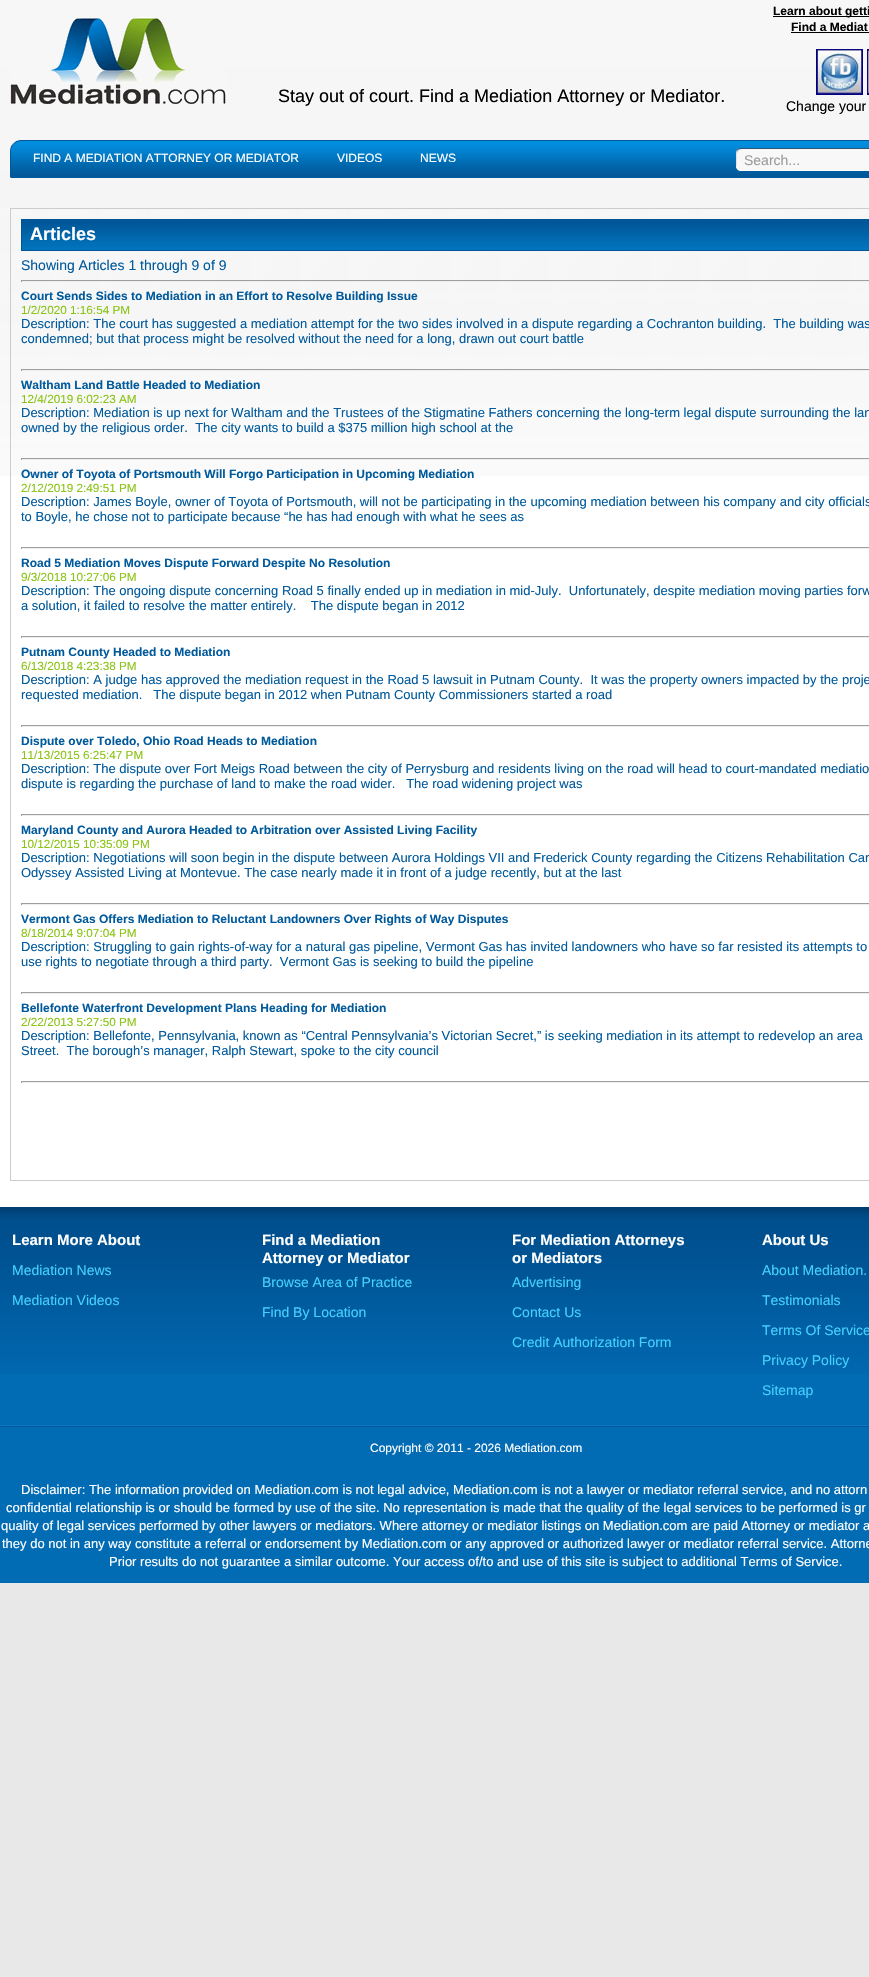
void draw(SkCanvas* c) {
SkPaint p;
p.setAntiAlias(true);
auto F=[&](const char* family, int weight, float size, bool italic = false){SkFontStyle style(weight, SkFontStyle::kNormal_Width,italic ? SkFontStyle::kItalic_Slant : SkFontStyle::kUpright_Slant);SkFont result(fontMgr->matchFamilyStyle(family, style), size);result.setSubpixel(true);return result;};
auto T=[&](const char* s, float x, float y, const SkFont& font){c->drawString(s, x, y, font, p);};
auto R=[&](float x, float y, float w, float h){c->drawRect(SkRect::MakeXYWH(x, y, w, h), p);};
auto I=[&](const char* path, float x, float y, float w, float h){auto image = SkImages::DeferredFromEncodedData(SkData::MakeFromFileName(path));c->drawImageRect(image, SkRect::MakeXYWH(x, y, w, h), SkSamplingOptions());};
c->clear(0xffe8e8e8);
I("1.png",0,0,869,208);
I("2.png",10,17,216,87);
auto f1 = F("Liberation Sans",400,18);
p.setColor(0xff000000);
T("Stay out of court. Find a Mediation Attorney or Mediator.",278,102,f1);
R(773,16,96,1);
auto f2 = F("Liberation Sans",700,12);
T("Learn about getti",773,15,f2);
T("Find a Mediat",791,31,f2);
R(791,32,78,1);
I("3.png",816,49,47,46);
I("4.png",867,49,2,46);
auto f3 = F("Liberation Sans",400,14);
T("Change your",786,111,f3);
I("5.png",10,140,859,38);
auto f4 = F("Liberation Sans",400,12);
p.setColor(0xffffffff);
T("FIND A MEDIATION ATTORNEY OR MEDIATOR",33,162,f4);
T("VIDEOS",337,162,f4);
T("NEWS",420,162,f4);
I("6.png",736,148,133,23);
p.setColor(0xff9b9b9b);
T("Search...",744,165,f3);
p.setColor(0xffffffff);
R(0,476,869,731);
I("7.png",0,208,869,268);
p.setStroke(true);
p.setStrokeWidth(1);
p.setColor(0xffcccccc);
c->drawRect(SkRect::MakeXYWH(10.5,208.5,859,972),p);
I("8.png",22,220,847,30);
p.setColor(0xff015697);
c->drawRect(SkRect::MakeXYWH(21.5,219.5,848,31),p);
auto f5 = F("Liberation Sans",700,18);
p.setStroke(false);
p.setColor(0xffffffff);
T("Articles",30,240,f5);
p.setColor(0xff015a9c);
T("Showing Articles 1 through 9 of 9",21,270,f3);
p.setColor(0xff9f9f9f);
R(21,280,848,1);
p.setColor(0xffeeeeee);
R(21,281,848,1);
p.setColor(0xff9f9f9f);
R(21,280,1,2);
p.setColor(0xff015a9c);
T("Court Sends Sides to Mediation in an Effort to Resolve Building Issue",21,300,f2);
auto f6 = F("Liberation Sans",400,11.75);
p.setColor(0xff8bc415);
T("1/2/2020 1:16:54 PM",21,314,f6);
auto f7 = F("Liberation Sans",400,13);
p.setColor(0xff015a9c);
T("Description: The court has suggested a mediation attempt for the two sides involved in a dispute regarding a Cochranton building.  The building was",21,328,f7);
T("condemned; but that process might be resolved without the need for a long, drawn out court battle",21,343,f7);
p.setColor(0xff9f9f9f);
R(21,369,848,1);
p.setColor(0xffeeeeee);
R(21,370,848,1);
p.setColor(0xff9f9f9f);
R(21,369,1,2);
p.setColor(0xff015a9c);
T("Waltham Land Battle Headed to Mediation",21,389,f2);
p.setColor(0xff8bc415);
T("12/4/2019 6:02:23 AM",21,403,f6);
p.setColor(0xff015a9c);
T("Description: Mediation is up next for Waltham and the Trustees of the Stigmatine Fathers concerning the long-term legal dispute surrounding the lan",21,417,f7);
T("owned by the religious order.  The city wants to build a $375 million high school at the",21,432,f7);
p.setColor(0xff9f9f9f);
R(21,458,848,1);
p.setColor(0xffeeeeee);
R(21,459,848,1);
p.setColor(0xff9f9f9f);
R(21,458,1,2);
p.setColor(0xff015a9c);
T("Owner of Toyota of Portsmouth Will Forgo Participation in Upcoming Mediation",21,478,f2);
p.setColor(0xff8bc415);
T("2/12/2019 2:49:51 PM",21,492,f6);
p.setColor(0xff015a9c);
T("Description: James Boyle, owner of Toyota of Portsmouth, will not be participating in the upcoming mediation between his company and city officials",21,506,f7);
T("to Boyle, he chose not to participate because “he has had enough with what he sees as",21,521,f7);
p.setColor(0xff9f9f9f);
R(21,547,848,1);
p.setColor(0xffeeeeee);
R(21,548,848,1);
p.setColor(0xff9f9f9f);
R(21,547,1,2);
p.setColor(0xff015a9c);
T("Road 5 Mediation Moves Dispute Forward Despite No Resolution",21,567,f2);
p.setColor(0xff8bc415);
T("9/3/2018 10:27:06 PM",21,581,f6);
p.setColor(0xff015a9c);
T("Description: The ongoing dispute concerning Road 5 finally ended up in mediation in mid-July.  Unfortunately, despite mediation moving parties forw",21,595,f7);
T("a solution, it failed to resolve the matter entirely.    The dispute began in 2012",21,610,f7);
p.setColor(0xff9f9f9f);
R(21,636,848,1);
p.setColor(0xffeeeeee);
R(21,637,848,1);
p.setColor(0xff9f9f9f);
R(21,636,1,2);
p.setColor(0xff015a9c);
T("Putnam County Headed to Mediation",21,656,f2);
p.setColor(0xff8bc415);
T("6/13/2018 4:23:38 PM",21,670,f6);
p.setColor(0xff015a9c);
T("Description: A judge has approved the mediation request in the Road 5 lawsuit in Putnam County.  It was the property owners impacted by the proje",21,684,f7);
T("requested mediation.   The dispute began in 2012 when Putnam County Commissioners started a road",21,699,f7);
p.setColor(0xff9f9f9f);
R(21,725,848,1);
p.setColor(0xffeeeeee);
R(21,726,848,1);
p.setColor(0xff9f9f9f);
R(21,725,1,2);
p.setColor(0xff015a9c);
T("Dispute over Toledo, Ohio Road Heads to Mediation",21,745,f2);
p.setColor(0xff8bc415);
T("11/13/2015 6:25:47 PM",21,759,f6);
p.setColor(0xff015a9c);
T("Description: The dispute over Fort Meigs Road between the city of Perrysburg and residents living on the road will head to court-mandated mediatio",21,773,f7);
T("dispute is regarding the purchase of land to make the road wider.   The road widening project was",21,788,f7);
p.setColor(0xff9f9f9f);
R(21,814,848,1);
p.setColor(0xffeeeeee);
R(21,815,848,1);
p.setColor(0xff9f9f9f);
R(21,814,1,2);
p.setColor(0xff015a9c);
T("Maryland County and Aurora Headed to Arbitration over Assisted Living Facility",21,834,f2);
p.setColor(0xff8bc415);
T("10/12/2015 10:35:09 PM",21,848,f6);
p.setColor(0xff015a9c);
T("Description: Negotiations will soon begin in the dispute between Aurora Holdings VII and Frederick County regarding the Citizens Rehabilitation Car",21,862,f7);
T("Odyssey Assisted Living at Montevue. The case nearly made it in front of a judge recently, but at the last",21,877,f7);
p.setColor(0xff9f9f9f);
R(21,903,848,1);
p.setColor(0xffeeeeee);
R(21,904,848,1);
p.setColor(0xff9f9f9f);
R(21,903,1,2);
p.setColor(0xff015a9c);
T("Vermont Gas Offers Mediation to Reluctant Landowners Over Rights of Way Disputes",21,923,f2);
p.setColor(0xff8bc415);
T("8/18/2014 9:07:04 PM",21,937,f6);
p.setColor(0xff015a9c);
T("Description: Struggling to gain rights-of-way for a natural gas pipeline, Vermont Gas has invited landowners who have so far resisted its attempts to",21,951,f7);
T("use rights to negotiate through a third party.  Vermont Gas is seeking to build the pipeline",21,966,f7);
p.setColor(0xff9f9f9f);
R(21,992,848,1);
p.setColor(0xffeeeeee);
R(21,993,848,1);
p.setColor(0xff9f9f9f);
R(21,992,1,2);
p.setColor(0xff015a9c);
T("Bellefonte Waterfront Development Plans Heading for Mediation",21,1012,f2);
p.setColor(0xff8bc415);
T("2/22/2013 5:27:50 PM",21,1026,f6);
p.setColor(0xff015a9c);
T("Description: Bellefonte, Pennsylvania, known as “Central Pennsylvania’s Victorian Secret,” is seeking mediation in its attempt to redevelop an area",21,1040,f7);
T("Street.  The borough’s manager, Ralph Stewart, spoke to the city council",21,1055,f7);
p.setColor(0xff9f9f9f);
R(21,1081,848,1);
p.setColor(0xffeeeeee);
R(21,1082,848,1);
p.setColor(0xff9f9f9f);
R(21,1081,1,2);
p.setColor(0xff016bb4);
R(0,1374,869,209);
I("9.png",0,1207,869,167);
I("10.png",0,1425,869,2);
auto f8 = F("Liberation Sans",700,15);
p.setColor(0xffffffff);
T("Learn More About",12,1245,f8);
p.setColor(0xff44d1fe);
T("Mediation News",12,1275,f3);
T("Mediation Videos",12,1305,f3);
p.setColor(0xffffffff);
T("Find a Mediation",262,1245,f8);
T("Attorney or Mediator",262,1263,f8);
p.setColor(0xff44d1fe);
T("Browse Area of Practice",262,1287,f3);
T("Find By Location",262,1317,f3);
p.setColor(0xffffffff);
T("For Mediation Attorneys",512,1245,f8);
T("or Mediators",512,1263,f8);
p.setColor(0xff44d1fe);
T("Advertising",512,1287,f3);
T("Contact Us",512,1317,f3);
T("Credit Authorization Form",512,1347,f3);
p.setColor(0xffffffff);
T("About Us",762,1245,f8);
p.setColor(0xff44d1fe);
T("About Mediation.",762,1275,f3);
T("Testimonials",762,1305,f3);
T("Terms Of Service",762,1335,f3);
T("Privacy Policy",762,1365,f3);
T("Sitemap",762,1395,f3);
p.setColor(0xffffffff);
T("Copyright © 2011 - 2026 Mediation.com",370,1452,f4);
T("Disclaimer: The information provided on Mediation.com is not legal advice, Mediation.com is not a lawyer or mediator referral service, and no attorn",21,1494,f7);
T("confidential relationship is or should be formed by use of the site. No representation is made that the quality of the legal services to be performed is gr",6,1512,f7);
T("quality of legal services performed by other lawyers or mediators. Where attorney or mediator listings on Mediation.com are paid Attorney or mediator a",1,1530,f7);
T("they do not in any way constitute a referral or endorsement by Mediation.com or any approved or authorized lawyer or mediator referral service. Attorne",2,1548,f7);
T("Prior results do not guarantee a similar outcome. Your access of/to and use of this site is subject to additional Terms of Service.",109,1566,f7);
}
